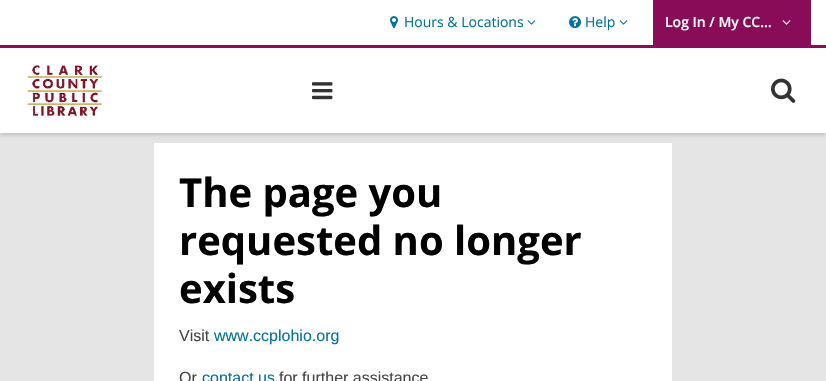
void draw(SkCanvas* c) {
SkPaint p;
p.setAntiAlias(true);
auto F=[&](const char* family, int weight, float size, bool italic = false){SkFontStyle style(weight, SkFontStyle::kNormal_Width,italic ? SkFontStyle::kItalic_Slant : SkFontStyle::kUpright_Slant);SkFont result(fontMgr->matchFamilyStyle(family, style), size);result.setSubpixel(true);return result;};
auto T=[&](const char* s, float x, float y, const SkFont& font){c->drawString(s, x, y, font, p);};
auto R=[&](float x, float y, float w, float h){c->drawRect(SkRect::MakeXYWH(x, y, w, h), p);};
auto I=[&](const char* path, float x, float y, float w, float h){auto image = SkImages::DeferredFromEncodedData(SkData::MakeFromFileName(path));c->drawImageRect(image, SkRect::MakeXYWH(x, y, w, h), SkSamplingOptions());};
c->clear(0xffe5e5e5);
p.setColor(0x29000000);
p.setMaskFilter(SkMaskFilter::MakeBlur(kNormal_SkBlurStyle, 2));
c->drawRect(SkRect::MakeXYWH(0,2,826,133),p);
p.setMaskFilter(nullptr);
p.setColor(0xffffffff);
R(0,0,826,45);
p.setColor(0xff890c58);
R(0,45,826,3);
I("1.png",390,16,8,12);
auto f1 = F("Open Sans",400,14);
p.setColor(0xff02729e);
T("Hours & Locations",404,27,f1);
I("2.png",527,20,9,5);
I("3.png",569,16,12,13);
T("Help",585,27,f1);
I("2.png",619,20,9,5);
p.setColor(0xff890c58);
R(653,0,158,45);
auto f2 = F("Open Sans",600,14);
p.setColor(0xffffffff);
T("Log In / My CC…",665,27,f2);
I("4.png",782,20,9,5);
R(0,48,826,85);
I("5.png",27,64,75,52);
I("6.png",312,82,21,18);
I("7.png",771,78,25,25);
R(154,143,518,238);
auto f3 = F("Open Sans",700,40);
p.setColor(0xff000000);
T("The page you",179,207,f3);
T("requested no longer",179,255,f3);
T("exists",179,303,f3);
auto f4 = F("Liberation Sans",400,16);
p.setColor(0xff474747);
T("Visit",179,341,f4);
p.setColor(0xff02729e);
T("www.ccplohio.org",214,341,f4);
p.setColor(0xff474747);
T("Or",179,383,f4);
p.setColor(0xff02729e);
T("contact us",202,383,f4);
p.setColor(0xff474747);
T("for further assistance",279,383,f4);
}
